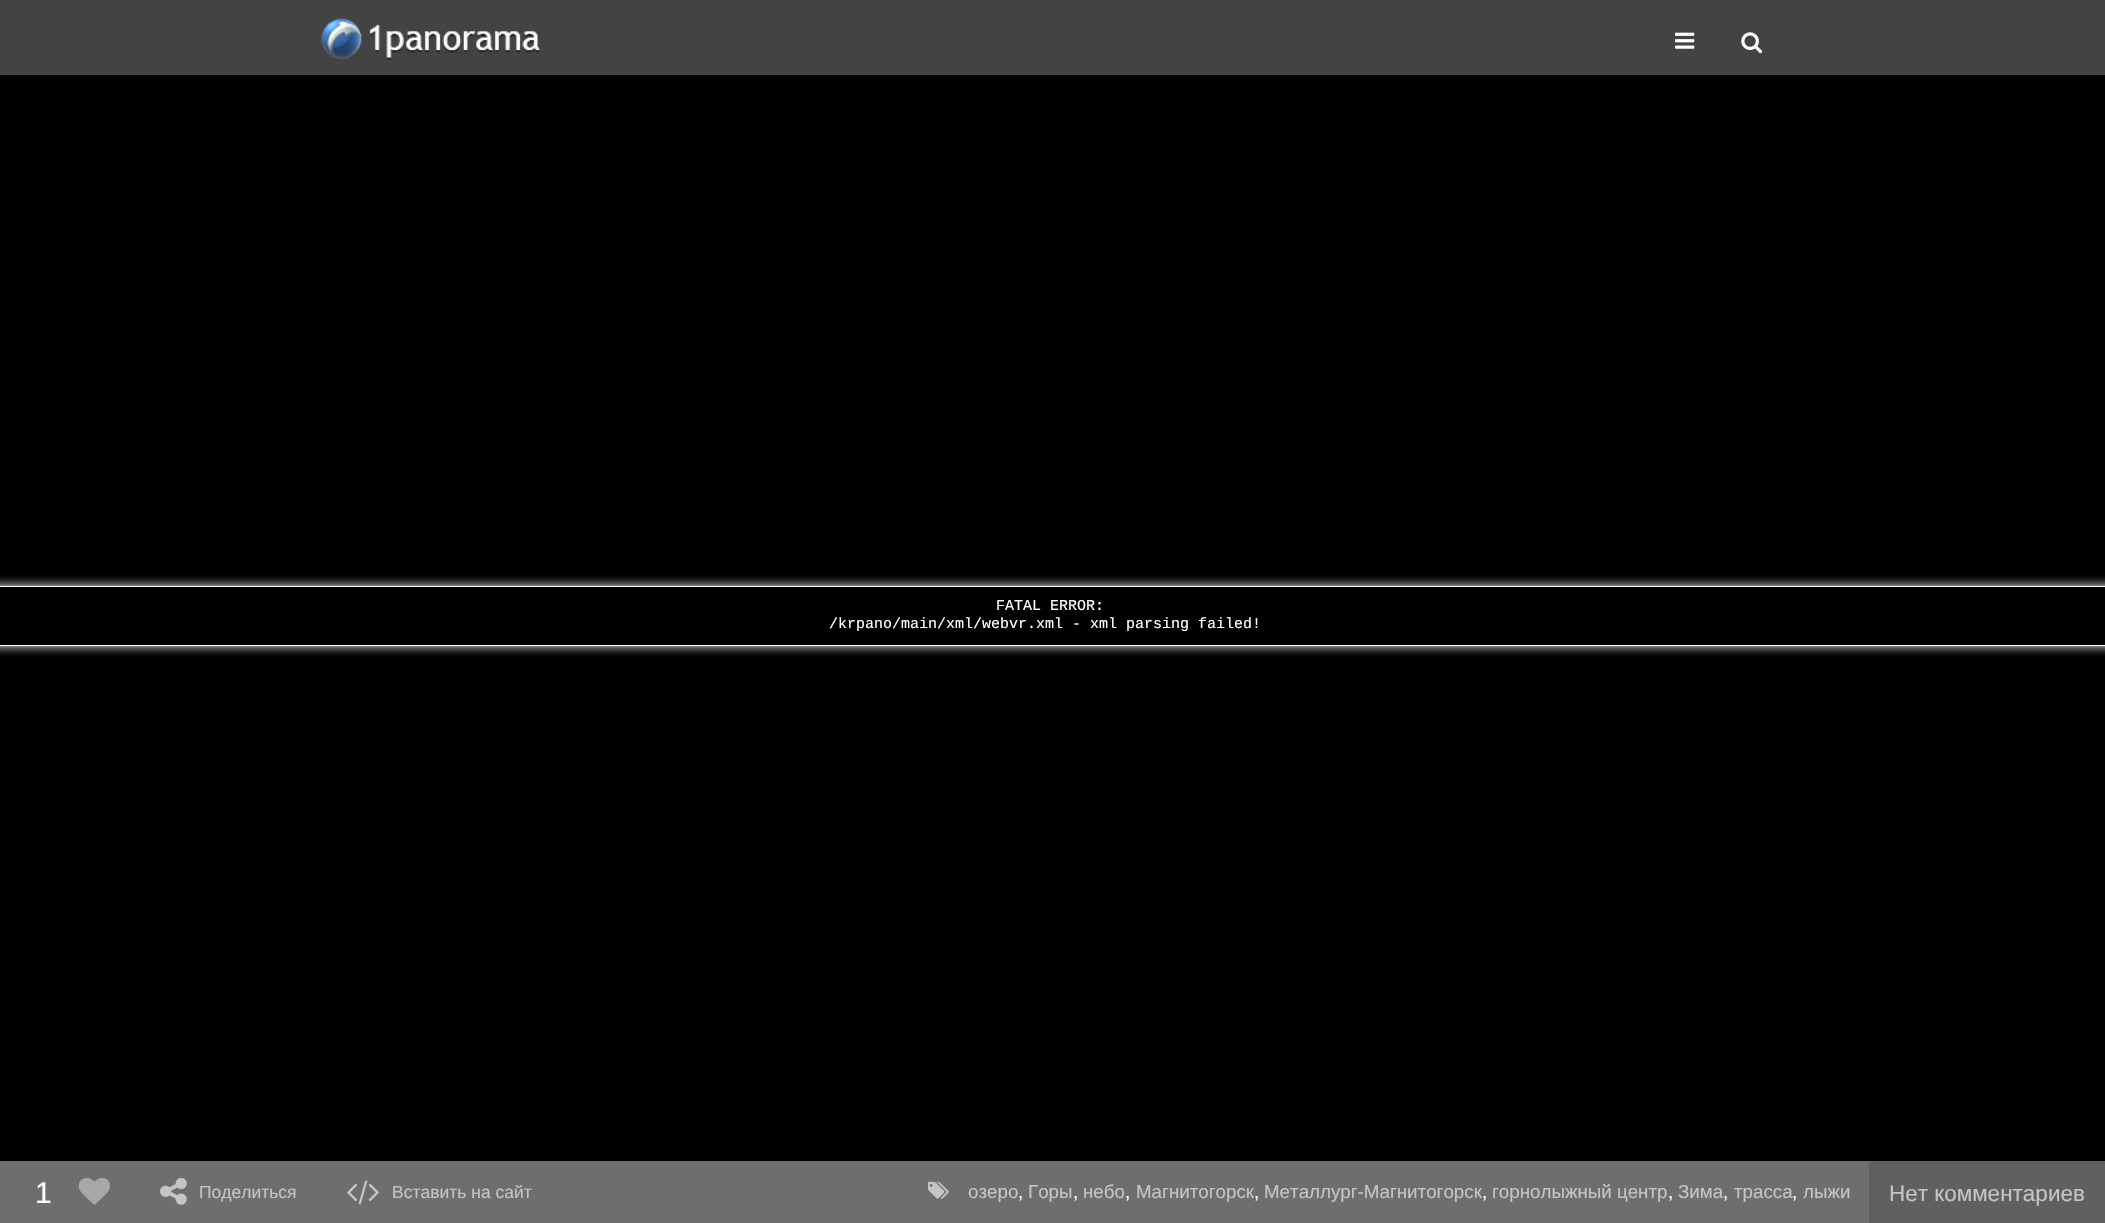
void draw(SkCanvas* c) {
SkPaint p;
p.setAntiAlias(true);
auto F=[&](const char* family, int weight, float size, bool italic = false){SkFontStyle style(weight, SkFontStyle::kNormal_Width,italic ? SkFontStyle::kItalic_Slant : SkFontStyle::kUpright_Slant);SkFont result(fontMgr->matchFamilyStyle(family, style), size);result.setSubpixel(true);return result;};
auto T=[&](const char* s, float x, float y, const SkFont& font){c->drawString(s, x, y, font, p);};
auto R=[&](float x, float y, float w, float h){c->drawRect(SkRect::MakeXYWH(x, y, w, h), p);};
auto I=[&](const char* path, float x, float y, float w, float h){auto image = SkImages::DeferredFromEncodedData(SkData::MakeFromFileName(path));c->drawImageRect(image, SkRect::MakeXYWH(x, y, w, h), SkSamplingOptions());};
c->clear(0xff434343);
I("1.png",321,18,220,42);
I("2.png",1675,32,20,17);
I("3.png",1741,32,22,22);
p.setColor(0xff000000);
R(0,75,2105,1086);
p.setColor(0xffffffff);
p.setMaskFilter(SkMaskFilter::MakeBlur(kNormal_SkBlurStyle, 5));
c->drawRect(SkRect::MakeXYWH(-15,586,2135,60),p);
p.setMaskFilter(nullptr);
p.setColor(0xff000000);
c->drawRect(SkRect::MakeXYWH(-.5,586.5,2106,59),p);
p.setStroke(true);
p.setStrokeWidth(1);
p.setColor(0xffffffff);
c->drawRect(SkRect::MakeXYWH(-.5,586.5,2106,59),p);
auto f1 = F("Liberation Mono",400,15);
p.setStroke(false);
T("FATAL ERROR:",996,610,f1);
T("/krpano/main/xml/webvr.xml - xml parsing failed!",829,628,f1);
p.setColor(0xff6e6e6e);
R(0,1161,1869,62);
auto f2 = F("Liberation Sans",400,30);
p.setColor(0xffffffff);
T("1",35,1203,f2);
I("4.png",78,1178,32,27);
I("5.png",160,1178,27,27);
auto f3 = F("Liberation Sans",400,17.5);
p.setColor(0xffc5c5c5);
T("Поделиться",199,1198,f3);
I("6.png",347,1180,32,25);
T("Вставить на сайт",392,1198,f3);
I("7.png",928,1181,21,18);
auto f4 = F("Liberation Sans",400,18.75);
T("озеро",968,1198,f4);
p.setColor(0xffffffff);
T(",",1018,1198,f4);
p.setColor(0xffc5c5c5);
T("Горы",1028,1198,f4);
p.setColor(0xffffffff);
T(",",1073,1198,f4);
p.setColor(0xffc5c5c5);
T("небо",1083,1198,f4);
p.setColor(0xffffffff);
T(",",1125,1198,f4);
p.setColor(0xffc5c5c5);
T("Магнитогорск",1136,1198,f4);
p.setColor(0xffffffff);
T(",",1254,1198,f4);
p.setColor(0xffc5c5c5);
T("Металлург-Магнитогорск",1264,1198,f4);
p.setColor(0xffffffff);
T(",",1482,1198,f4);
p.setColor(0xffc5c5c5);
T("горнолыжный центр",1492,1198,f4);
p.setColor(0xffffffff);
T(",",1668,1198,f4);
p.setColor(0xffc5c5c5);
T("Зима",1678,1198,f4);
p.setColor(0xffffffff);
T(",",1723,1198,f4);
p.setColor(0xffc5c5c5);
T("трасса",1734,1198,f4);
p.setColor(0xffffffff);
T(",",1792,1198,f4);
p.setColor(0xffc5c5c5);
T("лыжи",1803,1198,f4);
p.setColor(0xff606060);
R(1869,1161,236,62);
auto f5 = F("Liberation Sans",400,22.5);
p.setColor(0xffc5c5c5);
T("Нет комментариев",1889,1201,f5);
}
